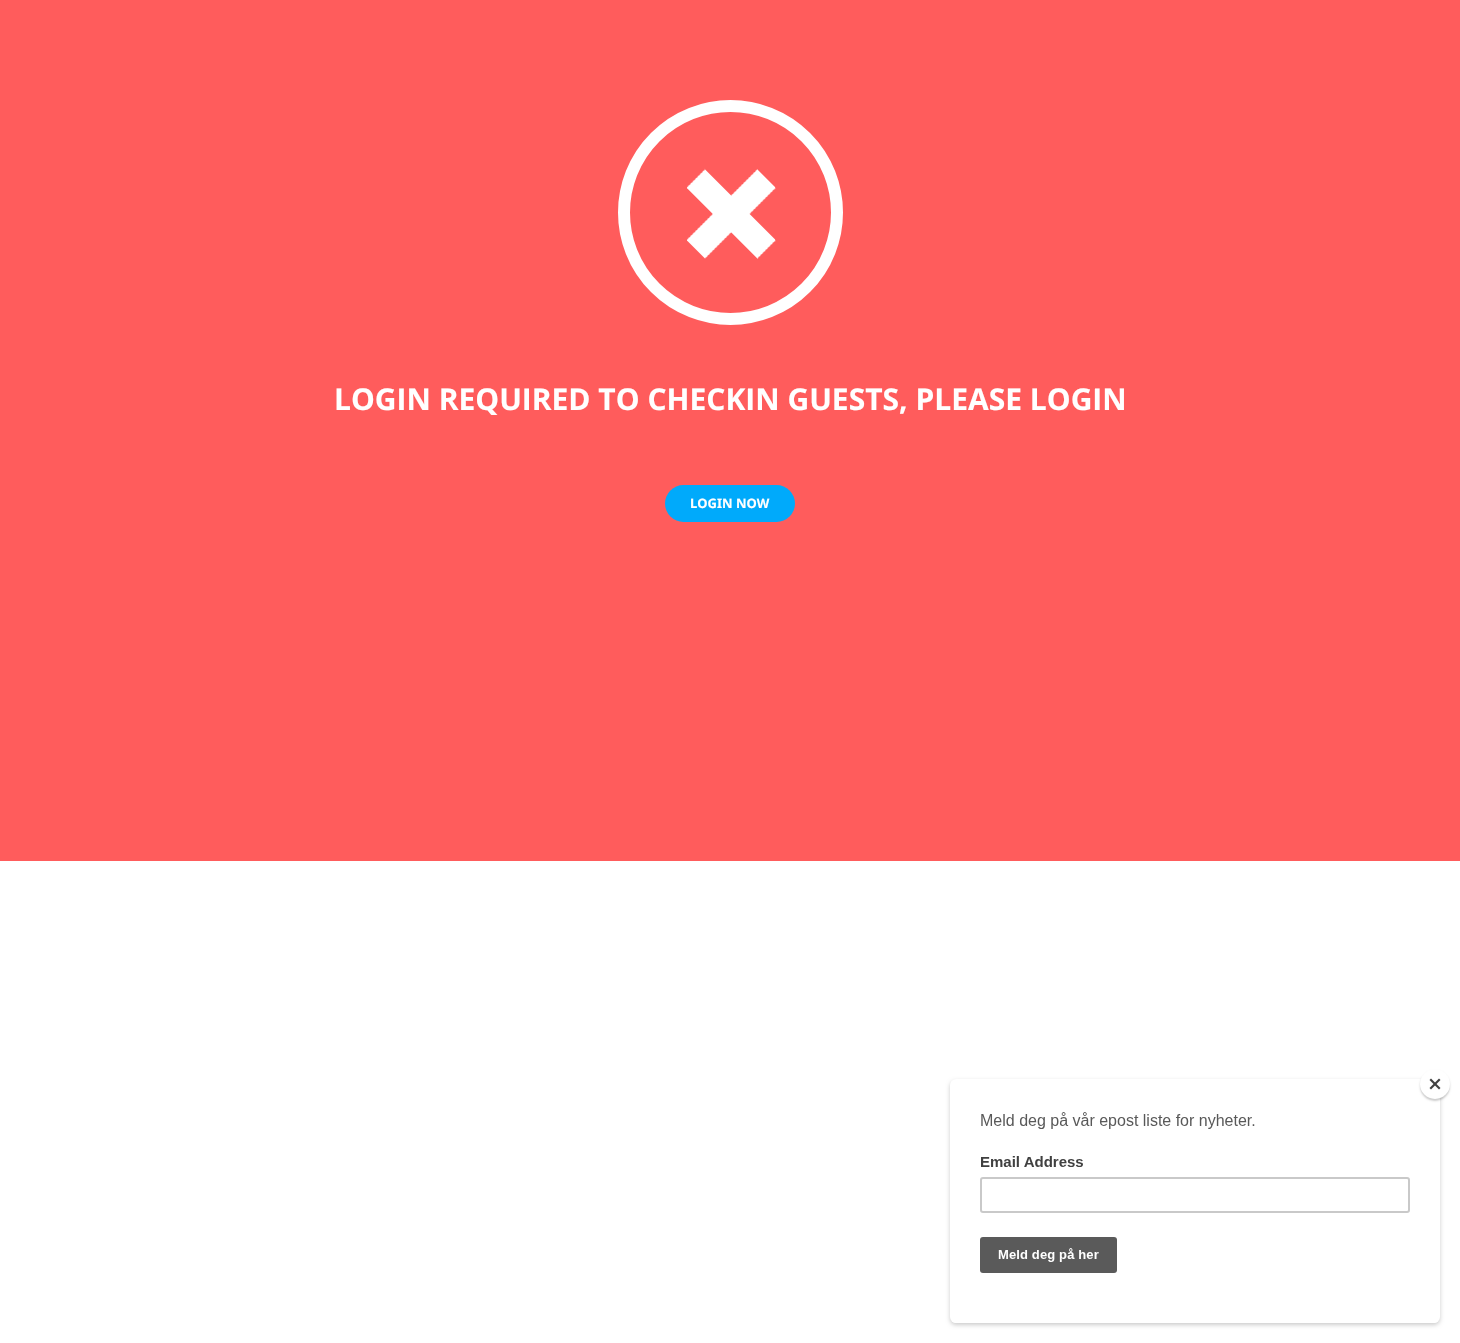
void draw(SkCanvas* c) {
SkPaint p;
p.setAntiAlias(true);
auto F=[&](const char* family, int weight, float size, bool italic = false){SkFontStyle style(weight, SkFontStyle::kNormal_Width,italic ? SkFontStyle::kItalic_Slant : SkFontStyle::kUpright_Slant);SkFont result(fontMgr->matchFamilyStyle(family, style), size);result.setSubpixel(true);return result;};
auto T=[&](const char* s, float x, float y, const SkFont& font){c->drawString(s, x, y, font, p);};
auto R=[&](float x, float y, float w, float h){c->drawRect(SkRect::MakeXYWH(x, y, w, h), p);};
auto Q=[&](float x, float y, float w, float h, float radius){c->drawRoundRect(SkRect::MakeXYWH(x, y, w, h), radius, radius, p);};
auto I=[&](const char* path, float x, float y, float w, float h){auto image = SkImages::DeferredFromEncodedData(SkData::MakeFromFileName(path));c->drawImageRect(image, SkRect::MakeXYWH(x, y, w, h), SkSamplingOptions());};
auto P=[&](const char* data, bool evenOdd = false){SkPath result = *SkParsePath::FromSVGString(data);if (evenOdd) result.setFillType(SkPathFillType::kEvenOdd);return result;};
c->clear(0xffffffff);
p.setColor(0xffff5c5c);
R(0,0,1460,861);
I("1.png",687,168,89,91);
p.setStroke(true);
p.setStrokeWidth(12);
p.setColor(0xffffffff);
c->drawCircle(730.5,212.5,106.5,p);
auto f1 = F("Open Sans",700,30);
p.setStroke(false);
T("LOGIN REQUIRED TO CHECKIN GUESTS, PLEASE LOGIN",334,410,f1);
p.setColor(0xff00aafb);
Q(665,485,130,37,18.5);
auto f2 = F("Noto Sans",700,13);
p.setColor(0xffffffff);
T("LOGIN NOW",690,508,f2);
p.setColor(0x33000000);
p.setMaskFilter(SkMaskFilter::MakeBlur(kNormal_SkBlurStyle, 2));
c->drawRoundRect(SkRect::MakeXYWH(950,1081,490,244),6,6,p);
p.setMaskFilter(nullptr);
p.setColor(0xffffffff);
Q(950,1079,490,244,6);
p.setColor(0x33000000);
p.setMaskFilter(SkMaskFilter::MakeBlur(kNormal_SkBlurStyle, 1));
c->drawRoundRect(SkRect::MakeXYWH(1420,1071,30,30),15,15,p);
p.setMaskFilter(nullptr);
p.setColor(0xffffffff);
c->drawCircle(1435,1084,15,p);
p.setColor(0xff414141);
c->drawPath(P("M1439 1078.5l1.5 1.5l-9.5 9.5l-1.5-1.5z"),p);
c->drawPath(P("M1429.5 1080l1.5-1.5l9.5 9.5l-1.5 1.5z"),p);
I("2.png",953,1112,484,211);
}
